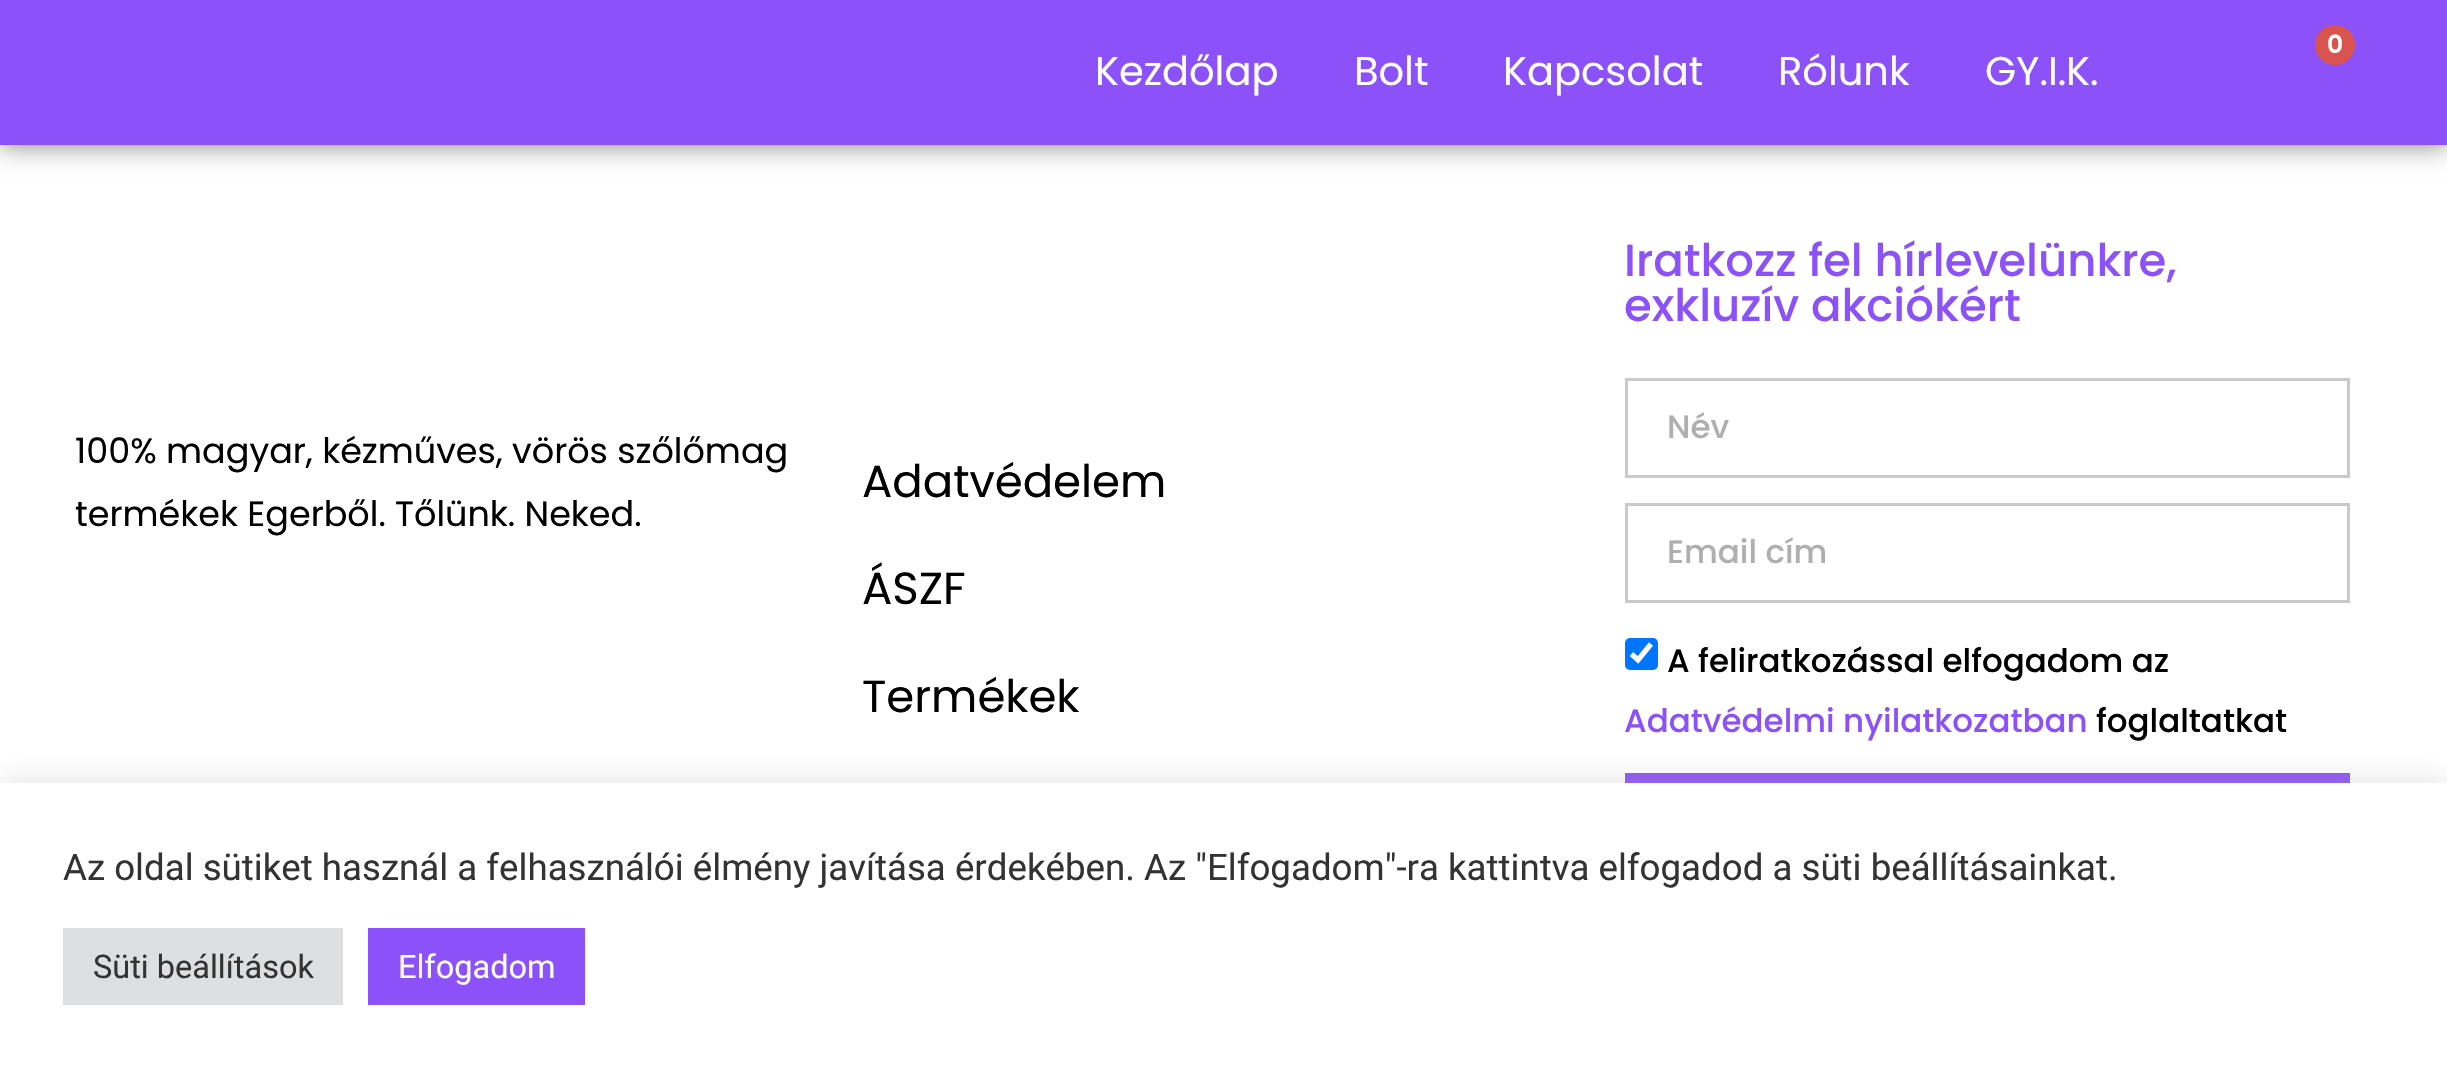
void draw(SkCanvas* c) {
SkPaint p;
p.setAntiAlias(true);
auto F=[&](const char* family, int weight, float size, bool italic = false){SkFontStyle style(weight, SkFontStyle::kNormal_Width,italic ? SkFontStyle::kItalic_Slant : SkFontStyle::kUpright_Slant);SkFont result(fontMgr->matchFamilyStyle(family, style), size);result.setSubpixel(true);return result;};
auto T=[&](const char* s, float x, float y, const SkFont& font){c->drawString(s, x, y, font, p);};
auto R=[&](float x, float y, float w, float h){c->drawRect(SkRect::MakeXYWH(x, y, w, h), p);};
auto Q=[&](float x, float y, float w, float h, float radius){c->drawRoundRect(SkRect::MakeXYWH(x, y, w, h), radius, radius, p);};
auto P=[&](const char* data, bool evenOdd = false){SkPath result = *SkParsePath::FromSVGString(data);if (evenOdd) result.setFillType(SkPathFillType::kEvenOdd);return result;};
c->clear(0xffffffff);
p.setColor(0x80000000);
p.setMaskFilter(SkMaskFilter::MakeBlur(kNormal_SkBlurStyle, 12.5));
c->drawRect(SkRect::MakeXYWH(0,0,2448,145),p);
p.setMaskFilter(nullptr);
p.setColor(0xff8c51f8);
R(0,0,2447,145);
p.setColor(0xffd9534f);
c->drawCircle(2335,45,20,p);
auto f1 = F("Poppins",600,25);
p.setColor(0xffffffff);
T("0",2327,53,f1);
auto f2 = F("Poppins",400,40);
T("Kezdőlap",1095,85,f2);
T("Bolt",1354,85,f2);
T("Kapcsolat",1503,85,f2);
T("Rólunk",1778,85,f2);
T("GY.I.K.",1985,85,f2);
auto f3 = F("Poppins",400,35);
p.setColor(0xff000000);
T("100% magyar, kézműves, vörös szőlőmag",75,463,f3);
T("termékek Egerből. Tőlünk. Neked.",75,526,f3);
auto f4 = F("Poppins",400,45);
T("Adatvédelem",862,497,f4);
T("ÁSZF",862,604,f4);
T("Termékek",862,712,f4);
auto f5 = F("Poppins",500,45);
p.setColor(0xff8c51f8);
T("Iratkozz fel hírlevelünkre,",1624,276,f5);
T("exkluzív akciókért",1624,321,f5);
p.setStroke(true);
p.setStrokeWidth(3);
p.setColor(0xffc9c9c9);
c->drawRect(SkRect::MakeXYWH(1626.5,379.5,722,97),p);
auto f6 = F("Poppins",500,32.5);
p.setStroke(false);
p.setColor(0xffafafaf);
T("Név",1667,438,f6);
p.setStroke(true);
p.setColor(0xffc9c9c9);
c->drawRect(SkRect::MakeXYWH(1626.5,504.5,722,97),p);
p.setStroke(false);
p.setColor(0xffafafaf);
T("Email cím",1667,563,f6);
p.setColor(0xff0075ff);
Q(1625,638,33,32,5);
p.setStroke(true);
p.setStrokeWidth(5.2);
p.setColor(0xffffffff);
c->drawPath(P("M1631.5 654l6.5 6l13-16"),p);
p.setStroke(false);
p.setColor(0xff000000);
T("A feliratkozással elfogadom az",1667,672,f6);
p.setColor(0xff8c51f8);
T("Adatvédelmi nyilatkozatban",1624,732,f6);
p.setColor(0xff000000);
T("foglaltatkat",2096,732,f6);
p.setColor(0xff8c51f8);
R(1625,773,725,10);
p.setColor(0x4dacabab);
p.setMaskFilter(SkMaskFilter::MakeBlur(kNormal_SkBlurStyle, 12.5));
c->drawRect(SkRect::MakeXYWH(0,780,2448,298),p);
p.setMaskFilter(nullptr);
p.setColor(0xffffffff);
R(0,783,2447,296);
auto f7 = F("Roboto",400,36.67);
p.setColor(0xff333333);
T("Az oldal sütiket használ a felhasználói élmény javítása érdekében. Az \"Elfogadom\"-ra kattintva elfogadod a süti beállításainkat.",63,880,f7);
p.setColor(0xffdedfe0);
R(63,928,280,77);
auto f8 = F("Roboto",400,32.5);
p.setColor(0xff333333);
T("Süti beállítások",93,978,f8);
p.setColor(0xff8c51f8);
R(368,928,217,77);
p.setColor(0xffffffff);
T("Elfogadom",398,978,f8);
}
